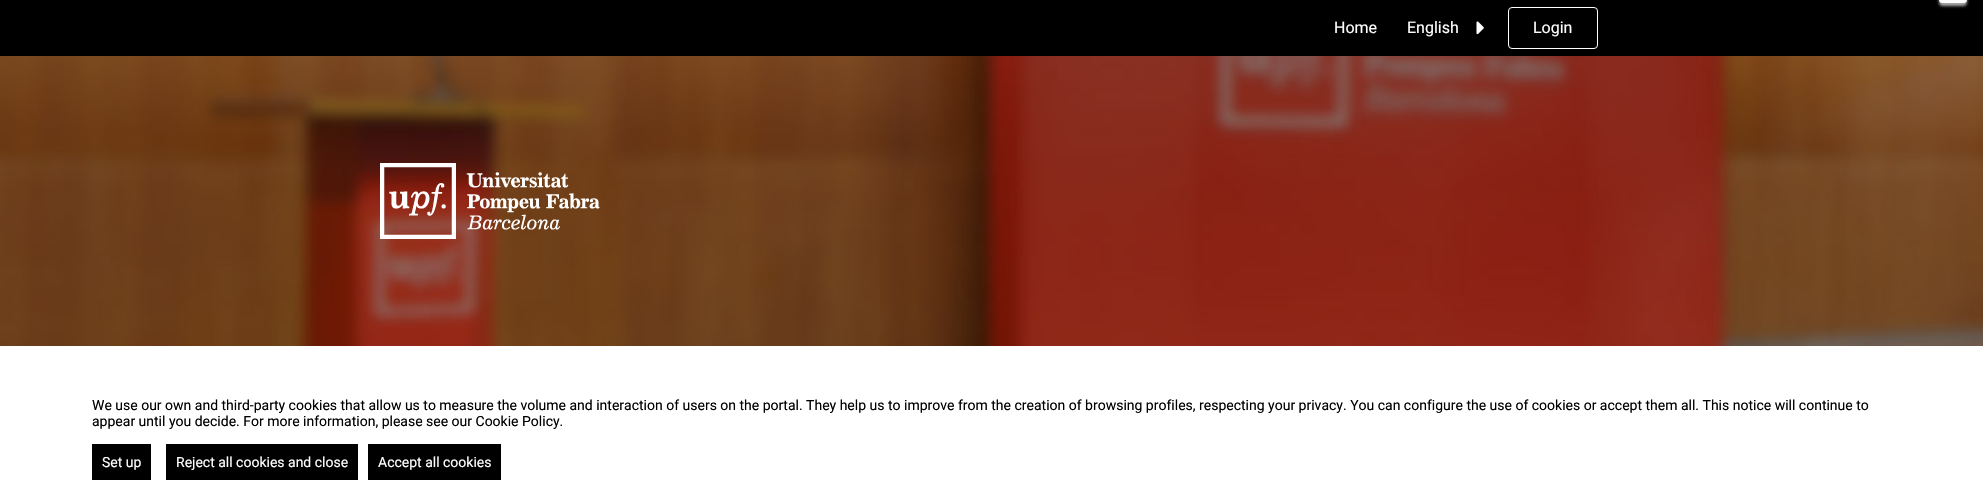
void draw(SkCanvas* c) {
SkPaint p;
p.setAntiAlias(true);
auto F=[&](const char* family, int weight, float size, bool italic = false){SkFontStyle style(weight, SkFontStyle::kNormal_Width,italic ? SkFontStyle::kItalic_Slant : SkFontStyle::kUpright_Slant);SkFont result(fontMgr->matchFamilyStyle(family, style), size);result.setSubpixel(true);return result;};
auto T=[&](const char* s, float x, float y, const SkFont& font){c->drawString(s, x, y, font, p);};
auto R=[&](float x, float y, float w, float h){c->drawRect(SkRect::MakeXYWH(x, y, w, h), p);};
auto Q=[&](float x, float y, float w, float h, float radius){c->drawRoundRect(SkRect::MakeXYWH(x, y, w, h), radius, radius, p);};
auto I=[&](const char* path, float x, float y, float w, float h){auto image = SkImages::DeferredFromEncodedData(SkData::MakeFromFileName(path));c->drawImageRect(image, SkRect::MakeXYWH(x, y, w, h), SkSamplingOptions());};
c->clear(0xffffffff);
p.setColor(0xff000000);
R(0,0,1983,56);
p.setColor(0xffaaaaaa);
p.setMaskFilter(SkMaskFilter::MakeBlur(kNormal_SkBlurStyle, 1.5));
c->drawRoundRect(SkRect::MakeXYWH(1939,-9,28,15),4,4,p);
p.setMaskFilter(nullptr);
p.setColor(0xfffcfcfc);
Q(1939,-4,28,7,4);
I("1.png",0,56,1983,290);
auto f1 = F("Roboto",400,16);
p.setColor(0xffffffff);
T("Home",1334,33,f1);
T("English",1407,33,f1);
I("2.png",1476,21,8,14);
p.setStroke(true);
p.setStrokeWidth(1);
c->drawRoundRect(SkRect::MakeXYWH(1508.5,7.5,89,41),3.5,3.5,p);
p.setStroke(false);
T("Login",1533,33,f1);
I("3.png",380,163,220,76);
auto f2 = F("Roboto",400,14);
p.setColor(0xff000000);
T("We use our own and third-party cookies that allow us to measure the volume and interaction of users on the portal. They help us to improve from the creation of browsing profiles, respecting your privacy. You can configure the use of cookies or accept them all. This notice will continue to",92,410,f2);
T("appear until you decide. For more information, please see our Cookie Policy.",92,426,f2);
R(92,444,59,36);
p.setColor(0xffffffff);
T("Set up",102,467,f2);
p.setColor(0xff000000);
R(166,444,192,36);
p.setColor(0xffffffff);
T("Reject all cookies and close",176,467,f2);
p.setColor(0xff000000);
R(368,444,133,36);
p.setColor(0xffffffff);
T("Accept all cookies",378,467,f2);
}
